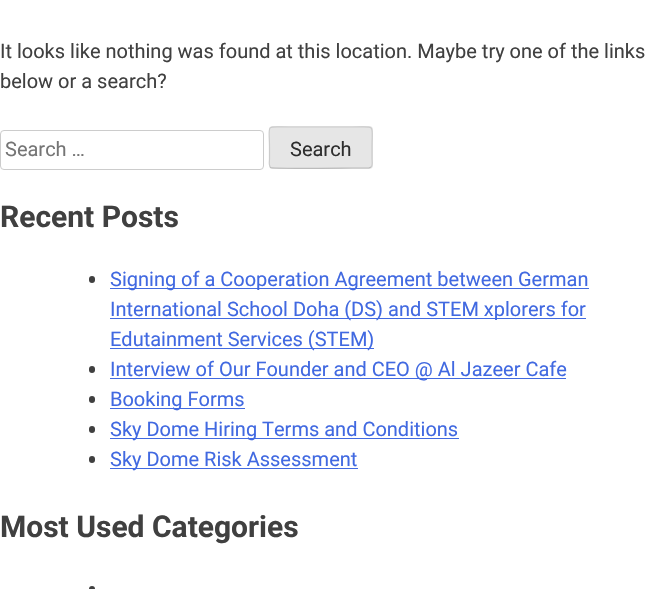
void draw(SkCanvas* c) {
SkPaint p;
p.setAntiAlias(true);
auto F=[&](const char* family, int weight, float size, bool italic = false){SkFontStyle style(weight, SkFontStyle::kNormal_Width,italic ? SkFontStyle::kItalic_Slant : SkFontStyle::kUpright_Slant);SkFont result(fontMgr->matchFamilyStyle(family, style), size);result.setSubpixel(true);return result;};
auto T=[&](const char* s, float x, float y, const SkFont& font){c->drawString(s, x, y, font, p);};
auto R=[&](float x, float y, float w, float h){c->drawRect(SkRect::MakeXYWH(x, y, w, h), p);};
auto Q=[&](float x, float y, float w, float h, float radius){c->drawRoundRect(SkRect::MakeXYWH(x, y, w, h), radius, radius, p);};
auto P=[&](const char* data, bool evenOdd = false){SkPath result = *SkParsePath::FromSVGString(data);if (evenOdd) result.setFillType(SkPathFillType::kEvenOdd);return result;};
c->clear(0xffffffff);
auto f1 = F("Roboto",400,20);
p.setColor(0xff404040);
T("It looks like nothing was found at this location. Maybe try one of the links",0,58,f1);
T("below or a search?",0,88,f1);
p.setStroke(true);
p.setStrokeWidth(1);
p.setColor(0xffcccccc);
c->drawRoundRect(SkRect::MakeXYWH(.5,130.5,263,39),3.5,3.5,p);
p.setStroke(false);
p.setColor(0xff757575);
T("Search …",5,156,f1);
p.setColor(0xffe6e6e6);
Q(269,126,104,43,4);
p.setStroke(true);
p.setStrokeWidth(1.2);
p.setColor(0xffbbbbbb);
c->drawPath(P("M371 167l-2 1h-16.5c-8.5 0-80 1-82-.5v-.5"),p);
p.setColor(0xffcccccc);
c->drawPath(P("M270.5 167c-2-1.5-1-6.5-1-8v-11.5c0-24.5-5-20.5 19-20.5h64c24 0 19.5-4 19.5 20.5v11.5c0 1.5 1 6.5-1 8"),p);
p.setStroke(false);
p.setColor(0xff2e2e2e);
T("Search",290,156,f1);
auto f2 = F("Roboto",700,30);
p.setColor(0xff404040);
T("Recent Posts",0,227,f2);
Q(89,276,6,7,3);
p.setColor(0xff4169e1);
R(110,288,479,1);
T("Signing of a Cooperation Agreement between German",110,286,f1);
R(110,318,476,1);
T("International School Doha (DS) and STEM xplorers for",110,316,f1);
R(110,348,264,1);
T("Edutainment Services (STEM)",110,346,f1);
p.setColor(0xff404040);
Q(89,366,6,7,3);
p.setColor(0xff4169e1);
R(110,378,456,1);
T("Interview of Our Founder and CEO @ Al Jazeer Cafe",110,376,f1);
p.setColor(0xff404040);
Q(89,396,6,7,3);
p.setColor(0xff4169e1);
R(110,408,135,1);
T("Booking Forms",110,406,f1);
p.setColor(0xff404040);
Q(89,426,6,7,3);
p.setColor(0xff4169e1);
R(110,438,349,1);
T("Sky Dome Hiring Terms and Conditions",110,436,f1);
p.setColor(0xff404040);
Q(89,456,6,7,3);
p.setColor(0xff4169e1);
R(110,468,248,1);
T("Sky Dome Risk Assessment",110,466,f1);
p.setColor(0xff404040);
T("Most Used Categories",0,537,f2);
c->drawCircle(92,589,3,p);
}
